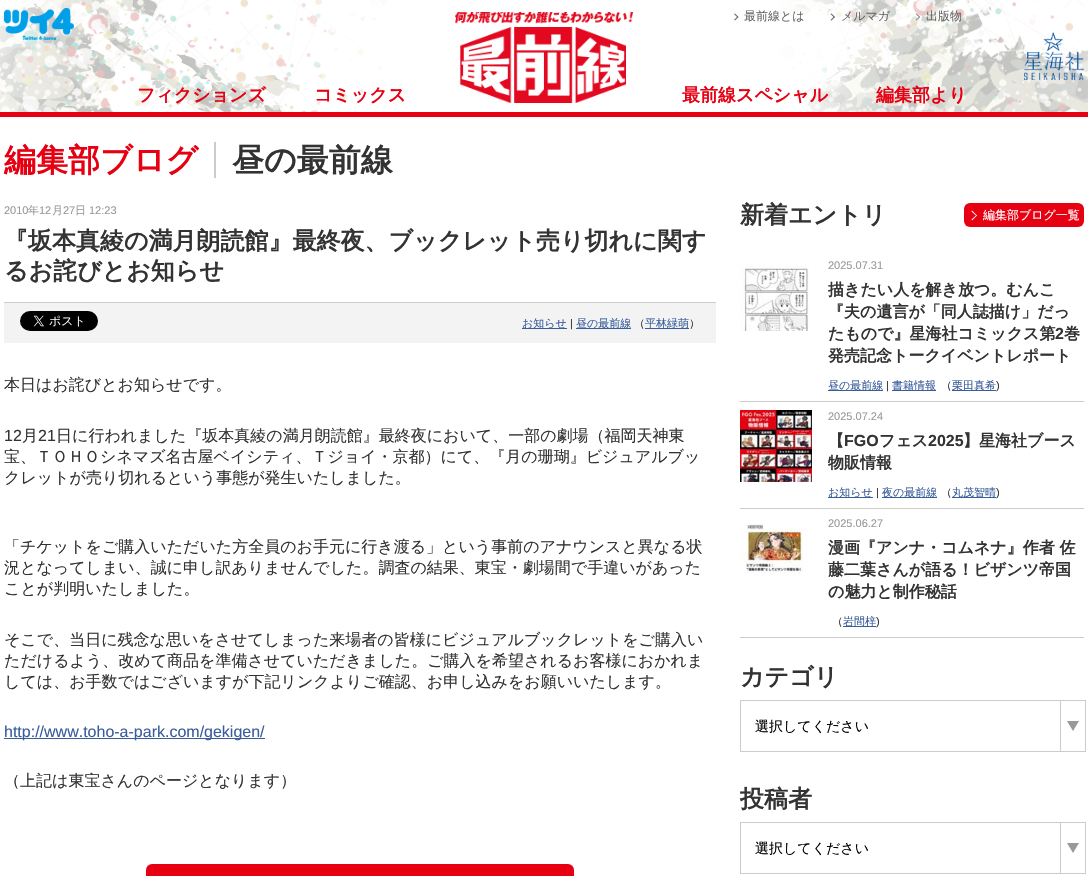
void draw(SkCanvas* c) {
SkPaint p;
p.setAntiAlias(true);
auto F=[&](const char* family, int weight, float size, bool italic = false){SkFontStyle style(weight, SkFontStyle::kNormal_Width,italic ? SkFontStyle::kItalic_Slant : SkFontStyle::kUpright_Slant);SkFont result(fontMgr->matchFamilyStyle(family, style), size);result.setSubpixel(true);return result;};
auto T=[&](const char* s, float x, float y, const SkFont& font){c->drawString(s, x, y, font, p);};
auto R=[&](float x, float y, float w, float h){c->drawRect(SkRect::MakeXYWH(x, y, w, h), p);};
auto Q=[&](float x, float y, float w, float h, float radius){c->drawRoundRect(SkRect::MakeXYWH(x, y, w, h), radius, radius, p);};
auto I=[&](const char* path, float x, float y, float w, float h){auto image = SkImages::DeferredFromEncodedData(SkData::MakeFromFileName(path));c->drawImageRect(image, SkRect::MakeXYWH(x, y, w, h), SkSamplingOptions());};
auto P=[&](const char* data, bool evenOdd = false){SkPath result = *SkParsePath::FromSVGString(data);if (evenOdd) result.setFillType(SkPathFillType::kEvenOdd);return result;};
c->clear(0xffffffff);
I("1.png",0,0,1088,112);
p.setColor(0xffe60012);
R(0,112,1088,5);
I("2.png",4,8,70,32);
I("3.png",455,12,178,91);
p.setColor(0xff666666);
c->drawPath(P("M735 13.5l3.5 3.5l-1 .5l-3.5-3.5z"),p);
c->drawPath(P("M737.5 16.5l1 .5l-3.5 3.5l-1-.5z"),p);
auto f1 = F("WenQuanYi Zen Hei",500,12);
T("最前線とは",744,20,f1);
c->drawPath(P("M831.5 13.5l3.5 3.5l-1 .5l-3.5-3.5z"),p);
c->drawPath(P("M834 16.5l1 .5l-3.5 3.5l-1-.5z"),p);
T("メルマガ",841,20,f1);
c->drawPath(P("M916.5 13.5l3.5 3.5l-.5 .5l-3.5-3.5z"),p);
c->drawPath(P("M919.5 16.5l.5 .5l-3.5 3.5l-.5-.5z"),p);
T("出版物",926,20,f1);
I("4.png",1024,32,60,48);
auto f2 = F("WenQuanYi Zen Hei",700,18);
p.setColor(0xffe60012);
T("フィクションズ",137,101,f2);
T("コミックス",314,101,f2);
T("最前線スペシャル",682,101,f2);
T("編集部より",876,101,f2);
auto f3 = F("WenQuanYi Zen Hei",700,32);
T("編集部ブログ",4,171,f3);
p.setColor(0xff333333);
T("昼の最前線",232,171,f3);
p.setColor(0xffcccccc);
R(214,142,2,36);
auto f4 = F("Liberation Sans",400,11);
p.setColor(0xff999999);
T("2010",4,214,f4);
auto f5 = F("WenQuanYi Zen Hei",500,11);
T("年",28,214,f5);
T("12",39,214,f4);
T("月",52,214,f5);
T("27",63,214,f4);
T("日",75,214,f5);
T("12:23",89,214,f4);
p.setColor(0xffcccccc);
R(4,302,712,1);
auto f6 = F("WenQuanYi Zen Hei",700,24);
p.setColor(0xff333333);
T("『坂本真綾の満月朗読館』最終夜、ブックレット売り切れに関す",4,249,f6);
T("るお詫びとお知らせ",4,279,f6);
p.setColor(0xfff3f3f3);
R(4,303,712,40);
I("5.png",20,311,78,20);
p.setColor(0xff395c9a);
R(522,328,45,1);
T("お知らせ",522,327,f5);
p.setColor(0xff333333);
T("|",570,327,f4);
p.setColor(0xff395c9a);
R(576,328,55,1);
T("昼の最前線",576,327,f5);
p.setColor(0xff333333);
T("（",634,327,f5);
p.setColor(0xff395c9a);
R(645,328,44,1);
T("平林緑萌",645,327,f5);
p.setColor(0xff333333);
T("）",689,327,f5);
auto f7 = F("WenQuanYi Zen Hei",500,16);
T("本日はお詫びとお知らせです。",4,390,f7);
auto f8 = F("Liberation Sans",400,16);
T("12",4,441,f8);
T("月",22,441,f7);
T("21",38,441,f8);
T("日に行われました『坂本真綾の満月朗読館』最終夜において、一部の劇場（福岡天神東",56,441,f7);
T("宝、ＴＯＨＯシネマズ名古屋ベイシティ、Ｔジョイ・京都）にて、『月の珊瑚』ビジュアルブッ",4,462,f7);
T("クレットが売り切れるという事態が発生いたしました。",4,483,f7);
T("「チケットをご購入いただいた方全員のお手元に行き渡る」という事前のアナウンスと異なる状",4,552,f7);
T("況となってしまい、誠に申し訳ありませんでした。調査の結果、東宝・劇場間で手違いがあった",4,573,f7);
T("ことが判明いたしました。",4,594,f7);
T("そこで、当日に残念な思いをさせてしまった来場者の皆様にビジュアルブックレットをご購入い",4,645,f7);
T("ただけるよう、改めて商品を準備させていただきました。ご購入を希望されるお客様におかれま",4,666,f7);
T("しては、お手数ではございますが下記リンクよりご確認、お申し込みをお願いいたします。",4,687,f7);
p.setColor(0xff395c9a);
R(4,738,261,1);
T("http://www.toho-a-park.com/gekigen/",4,737,f8);
p.setColor(0xff333333);
T("（上記は東宝さんのページとなります）",4,786,f7);
p.setColor(0xffe60012);
Q(146,864,428,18,6);
p.setColor(0xff333333);
T("新着エントリ",740,223,f6);
p.setColor(0xffe60012);
Q(964,203,120,24,6);
p.setColor(0xffffffff);
c->drawPath(P("M972 210.5l5 5l-.5 .5l-5-4.5z"),p);
c->drawPath(P("M976.5 215l.5 .5l-5 5l-.5-1z"),p);
T("編集部ブログ一覧",983,219,f1);
p.setColor(0xffcccccc);
R(740,401,344,1);
I("6.png",740,265,69,66);
p.setColor(0xff999999);
T("2025.07.31",828,269,f4);
auto f9 = F("WenQuanYi Zen Hei",700,16);
p.setColor(0xff333333);
T("描きたい人を解き放つ。むんこ",828,295,f9);
T("『夫の遺言が「同人誌描け」だっ",828,317,f9);
T("たもので』星海社コミックス第",828,339,f9);
auto f10 = F("Liberation Sans",700,16);
T("2",1055,339,f10);
T("巻",1064,339,f9);
T("発売記念トークイベントレポート",828,361,f9);
p.setColor(0xff395c9a);
R(828,390,55,1);
T("昼の最前線",828,389,f5);
p.setColor(0xff333333);
T("|",886,389,f4);
p.setColor(0xff395c9a);
R(892,390,44,1);
T("書籍情報",892,389,f5);
p.setColor(0xff333333);
T("（",941,389,f5);
p.setColor(0xff395c9a);
R(952,390,44,1);
T("栗田真希",952,389,f5);
p.setColor(0xff333333);
T(")",996,389,f4);
p.setColor(0xffcccccc);
R(740,508,344,1);
I("7.png",740,410,72,72);
p.setColor(0xff999999);
T("2025.07.24",828,420,f4);
p.setColor(0xff333333);
T("【",828,446,f9);
T("FGO",844,446,f10);
T("フェス",879,446,f9);
T("2025",928,446,f10);
T("】星海社ブース",963,446,f9);
T("物販情報",828,468,f9);
p.setColor(0xff395c9a);
R(828,497,45,1);
T("お知らせ",828,496,f5);
p.setColor(0xff333333);
T("|",876,496,f4);
p.setColor(0xff395c9a);
R(882,497,55,1);
T("夜の最前線",882,496,f5);
p.setColor(0xff333333);
T("（",941,496,f5);
p.setColor(0xff395c9a);
R(952,497,44,1);
T("丸茂智晴",952,496,f5);
p.setColor(0xff333333);
T(")",996,496,f4);
p.setColor(0xffcccccc);
R(740,637,344,1);
I("8.png",740,523,69,52);
p.setColor(0xff999999);
T("2025.06.27",828,527,f4);
p.setColor(0xff333333);
T("漫画『アンナ・コムネナ』作者 佐",828,553,f9);
T("藤二葉さんが語る！ビザンツ帝国",828,575,f9);
T("の魅力と制作秘話",828,597,f9);
T("（",832,625,f5);
p.setColor(0xff395c9a);
R(843,626,33,1);
T("岩間梓",843,625,f5);
p.setColor(0xff333333);
T(")",876,625,f4);
T("カテゴリ",740,685,f6);
p.setStroke(true);
p.setStrokeWidth(1);
p.setColor(0xffcccccc);
c->drawRect(SkRect::MakeXYWH(740.5,700.5,345,51),p);
auto f11 = F("WenQuanYi Zen Hei",500,14);
p.setStroke(false);
p.setColor(0xff000000);
T("選択してください",755,731,f11);
p.setColor(0xffcccccc);
R(1060,701,1,50);
p.setColor(0xff999999);
c->drawPath(P("M1067 721h12l-6 10z"),p);
p.setColor(0xff333333);
T("投稿者",740,807,f6);
p.setStroke(true);
p.setColor(0xffcccccc);
c->drawRect(SkRect::MakeXYWH(740.5,822.5,345,51),p);
p.setStroke(false);
p.setColor(0xff000000);
T("選択してください",755,853,f11);
p.setColor(0xffcccccc);
R(1060,823,1,50);
p.setColor(0xff999999);
c->drawPath(P("M1067 843h12l-6 10z"),p);
}
